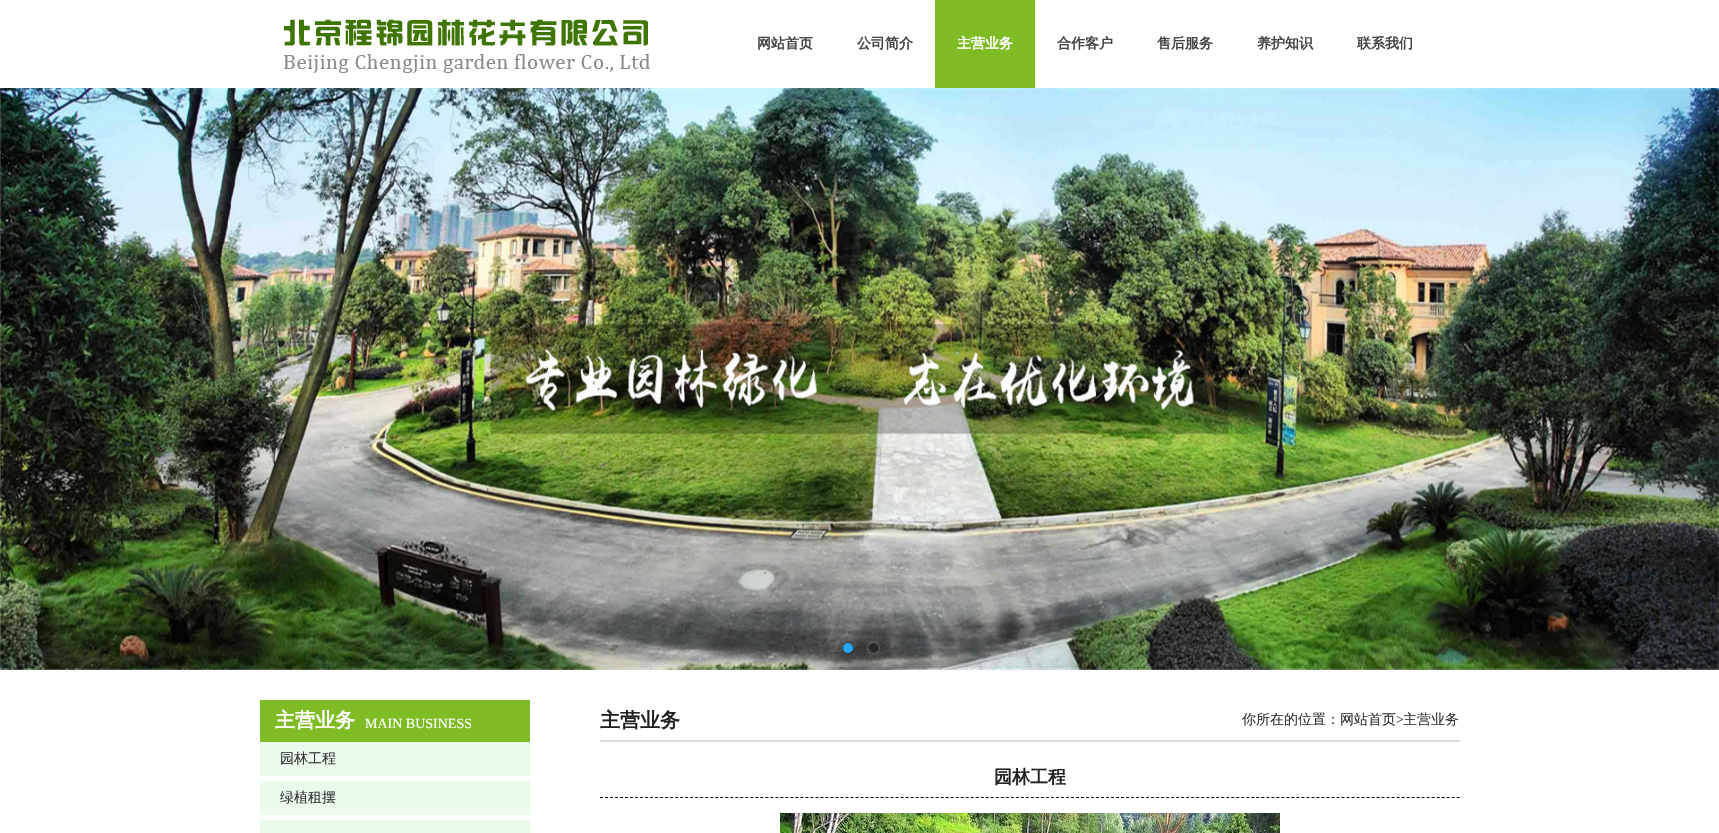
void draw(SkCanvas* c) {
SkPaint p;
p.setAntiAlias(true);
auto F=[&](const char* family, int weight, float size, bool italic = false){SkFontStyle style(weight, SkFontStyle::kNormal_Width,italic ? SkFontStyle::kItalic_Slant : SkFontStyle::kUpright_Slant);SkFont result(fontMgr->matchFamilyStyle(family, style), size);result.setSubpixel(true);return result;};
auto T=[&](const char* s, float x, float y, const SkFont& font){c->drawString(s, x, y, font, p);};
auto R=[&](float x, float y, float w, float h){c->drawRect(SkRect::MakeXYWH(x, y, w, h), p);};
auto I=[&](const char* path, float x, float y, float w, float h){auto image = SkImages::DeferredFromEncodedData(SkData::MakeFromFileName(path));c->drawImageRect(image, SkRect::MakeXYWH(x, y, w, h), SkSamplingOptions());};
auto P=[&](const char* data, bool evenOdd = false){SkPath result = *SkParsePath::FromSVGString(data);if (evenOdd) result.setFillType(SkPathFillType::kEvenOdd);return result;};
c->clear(0xffffffff);
I("1.png",284,19,366,54);
auto f1 = F("WenQuanYi Zen Hei",700,14);
p.setColor(0xff444444);
T("网站首页",757,48,f1);
T("公司简介",857,48,f1);
p.setColor(0xff7fbc23);
R(935,0,100,88);
p.setColor(0xffffffff);
T("主营业务",957,48,f1);
p.setColor(0xff444444);
T("合作客户",1057,48,f1);
T("售后服务",1157,48,f1);
T("养护知识",1257,48,f1);
T("联系我们",1357,48,f1);
I("2.png",0,88,1719,582);
I("3.png",843,643,10,10);
I("4.png",866,640,15,16);
p.setColor(0xff7fbc23);
R(260,700,270,42);
auto f2 = F("WenQuanYi Zen Hei",700,20);
p.setColor(0xffffffff);
T("主营业务",275,727,f2);
auto f3 = F("Liberation Serif",400,14);
T("MAIN BUSINESS",365,728,f3);
p.setColor(0xffeafbec);
R(260,742,270,34);
auto f4 = F("WenQuanYi Zen Hei",500,14);
p.setColor(0xff333333);
T("园林工程",280,763,f4);
p.setColor(0xffeafbec);
R(260,781,270,34);
p.setColor(0xff333333);
T("绿植租摆",280,802,f4);
p.setColor(0xffeafbec);
R(260,820,270,13);
p.setColor(0xffdbdbdb);
R(600,740,860,2);
p.setColor(0xff222222);
T("主营业务",600,727,f2);
p.setColor(0xff333333);
T("你所在的位置：网站首页",1242,724,f4);
T(">",1396,724,f3);
T("主营业务",1403,724,f4);
p.setStroke(true);
p.setStrokeWidth(1);
p.setColor(0xff000000);
p.setPathEffect(SkDashPathEffect::Make({{3,2.01f}}, 0));
c->drawPath(P("M600 797.5h860"),p);
p.setPathEffect(nullptr);
auto f5 = F("WenQuanYi Zen Hei",700,18);
p.setStroke(false);
p.setColor(0xff222222);
T("园林工程",994,783,f5);
I("5.png",780,813,500,20);
}
